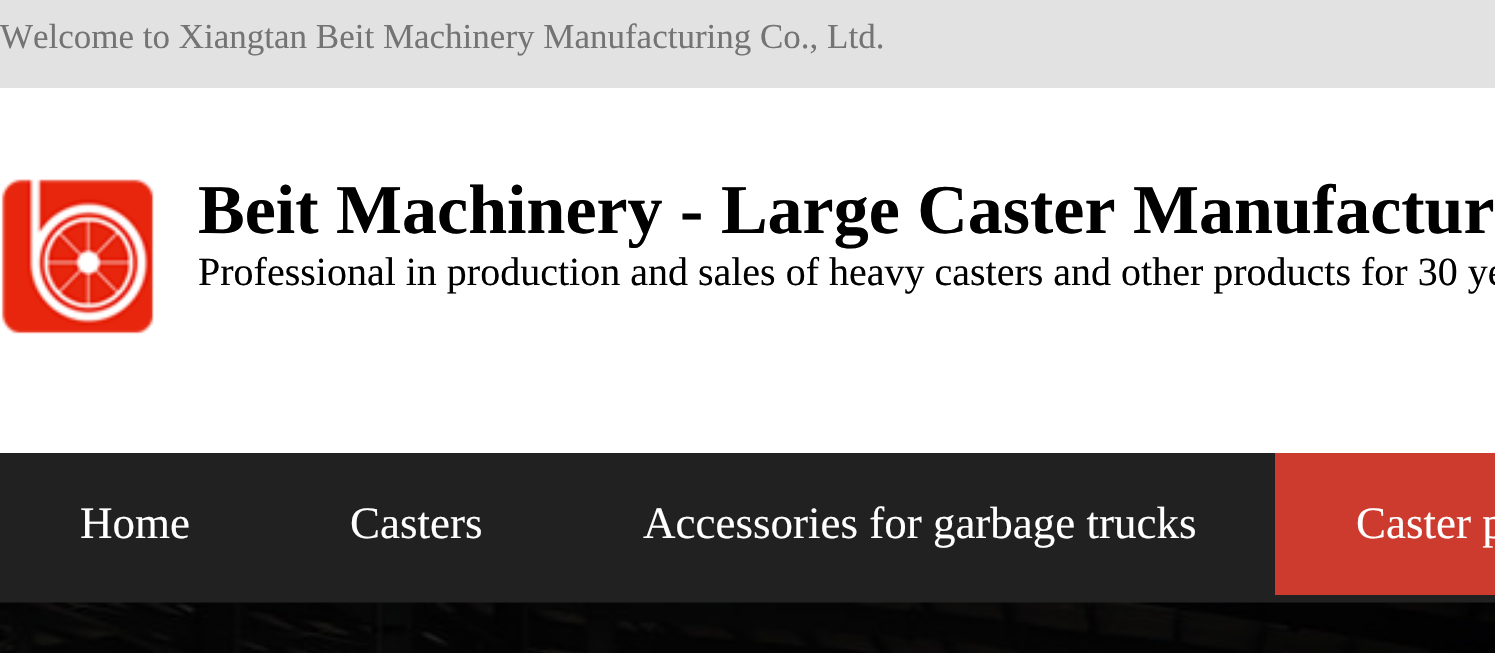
void draw(SkCanvas* c) {
SkPaint p;
p.setAntiAlias(true);
auto F=[&](const char* family, int weight, float size, bool italic = false){SkFontStyle style(weight, SkFontStyle::kNormal_Width,italic ? SkFontStyle::kItalic_Slant : SkFontStyle::kUpright_Slant);SkFont result(fontMgr->matchFamilyStyle(family, style), size);result.setSubpixel(true);return result;};
auto T=[&](const char* s, float x, float y, const SkFont& font){c->drawString(s, x, y, font, p);};
auto R=[&](float x, float y, float w, float h){c->drawRect(SkRect::MakeXYWH(x, y, w, h), p);};
auto I=[&](const char* path, float x, float y, float w, float h){auto image = SkImages::DeferredFromEncodedData(SkData::MakeFromFileName(path));c->drawImageRect(image, SkRect::MakeXYWH(x, y, w, h), SkSamplingOptions());};
c->clear(0xffffffff);
p.setColor(0xffe2e2e2);
R(0,0,1495,88);
auto f1 = F("Liberation Serif",400,35);
p.setColor(0xff747474);
T("Welcome to Xiangtan Beit Machinery Manufacturing Co., Ltd.",0,48,f1);
I("1.png",1,179,153,155);
auto f2 = F("Liberation Serif",700,70);
p.setColor(0xff000000);
T("Beit Machinery - Large Caster Manufactur",198,233,f2);
auto f3 = F("Liberation Serif",400,40);
T("Professional in production and sales of heavy casters and other products for 30 ye",198,285,f3);
p.setColor(0xff212121);
R(0,453,1495,150);
auto f4 = F("Liberation Serif",400,45);
p.setColor(0xffffffff);
T("Home",80,538,f4);
T("Casters",350,538,f4);
T("Accessories for garbage trucks",643,538,f4);
p.setColor(0xffcd3b2e);
R(1275,453,220,142);
p.setColor(0xffffffff);
T("Caster p",1356,538,f4);
I("2.png",0,602,1495,51);
}
